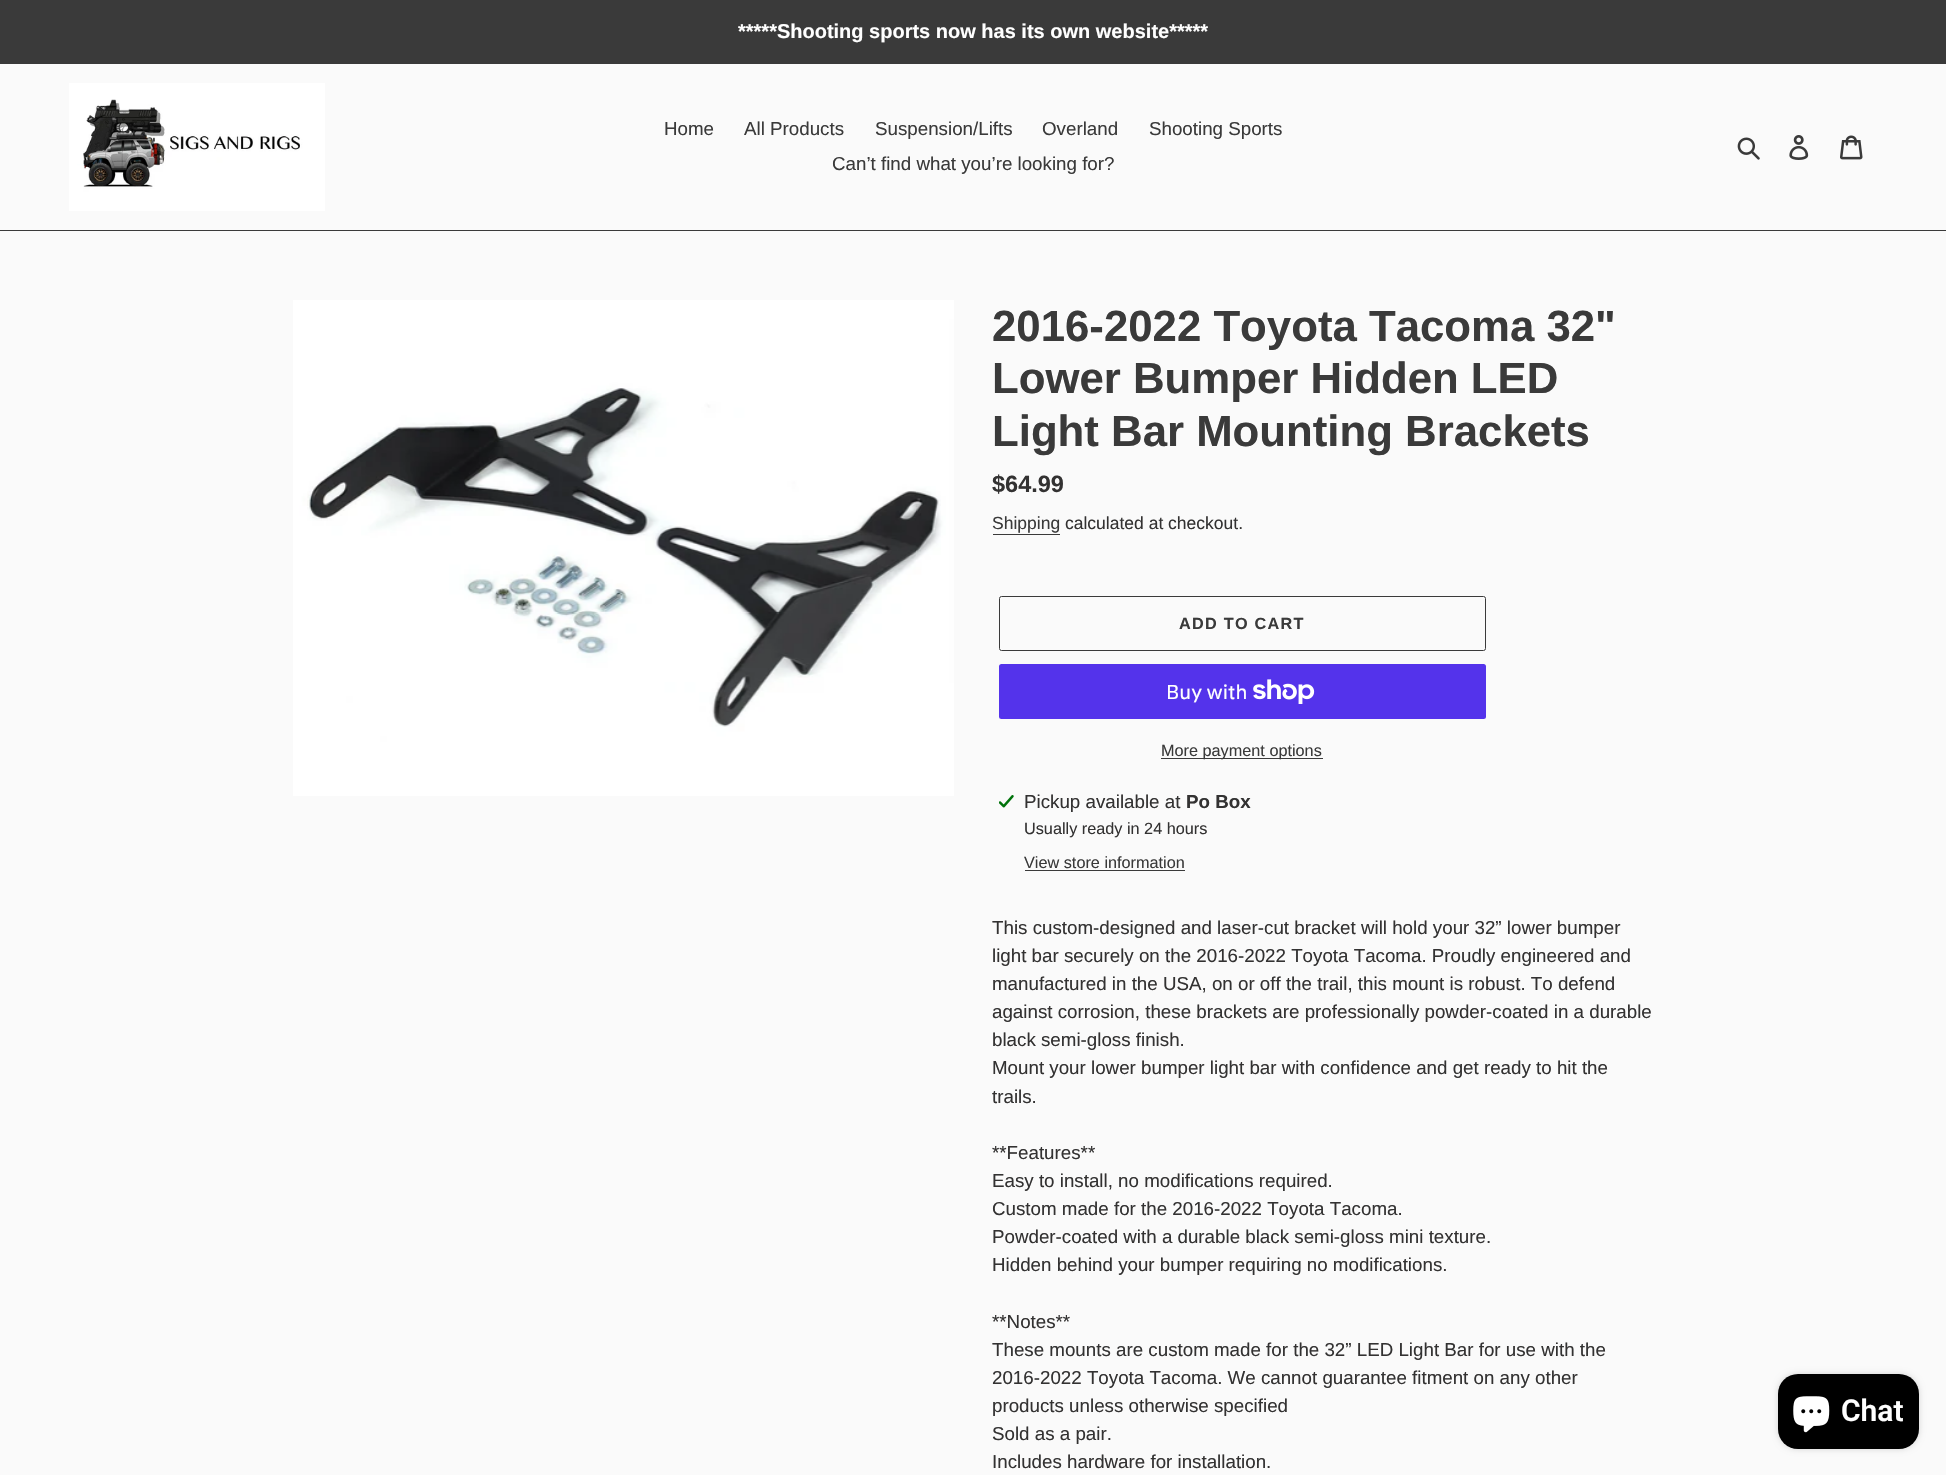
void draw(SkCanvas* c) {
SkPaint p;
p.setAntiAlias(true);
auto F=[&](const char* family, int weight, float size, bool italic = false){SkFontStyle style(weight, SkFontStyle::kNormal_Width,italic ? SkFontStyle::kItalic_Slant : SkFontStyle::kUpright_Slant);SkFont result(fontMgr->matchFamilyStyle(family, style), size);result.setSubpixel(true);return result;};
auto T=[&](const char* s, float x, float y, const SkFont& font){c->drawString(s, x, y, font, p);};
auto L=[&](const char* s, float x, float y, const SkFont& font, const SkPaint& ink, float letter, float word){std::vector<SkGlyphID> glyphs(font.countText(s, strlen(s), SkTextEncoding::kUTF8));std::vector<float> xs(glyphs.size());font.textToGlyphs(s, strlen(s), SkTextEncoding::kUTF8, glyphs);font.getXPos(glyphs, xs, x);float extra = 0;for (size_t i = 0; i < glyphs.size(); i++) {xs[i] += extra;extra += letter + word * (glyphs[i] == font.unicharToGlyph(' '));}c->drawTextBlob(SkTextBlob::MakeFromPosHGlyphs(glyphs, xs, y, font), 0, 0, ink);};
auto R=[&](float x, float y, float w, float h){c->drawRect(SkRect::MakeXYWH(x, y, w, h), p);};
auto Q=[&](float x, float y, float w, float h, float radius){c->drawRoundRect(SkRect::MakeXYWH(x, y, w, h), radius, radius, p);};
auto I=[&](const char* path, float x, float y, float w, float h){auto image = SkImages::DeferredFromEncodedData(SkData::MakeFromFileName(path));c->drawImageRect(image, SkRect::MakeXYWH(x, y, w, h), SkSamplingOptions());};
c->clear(0xfffafafa);
p.setColor(0xff3a3a3a);
R(0,0,1946,64);
auto f1 = F("Liberation Sans",700,20);
p.setColor(0xffffffff);
T("*****Shooting sports now has its own website*****",738,38,f1);
p.setColor(0xff3a3a3a);
R(0,230,1946,1);
I("1.png",69,83,256,128);
auto f2 = F("Liberation Sans",400,18.75);
T("Home",664,135,f2);
T("All Products",744,135,f2);
T("Suspension/Lifts",875,135,f2);
T("Overland",1042,135,f2);
T("Shooting Sports",1149,135,f2);
T("Can’t find what you’re looking for?",832,170,f2);
I("2.png",1737,137,23,23);
I("3.png",1789,135,20,25);
I("4.png",1840,135,23,25);
I("5.png",293,300,661,496);
auto f3 = F("Liberation Sans",700,43.75);
T("2016-2022 Toyota Tacoma 32\"",992,341,f3);
T("Lower Bumper Hidden LED",992,393,f3);
T("Light Bar Mounting Brackets",992,446,f3);
auto f4 = F("Liberation Sans",700,23.5);
p.setColor(0xff333232);
T("$64.99",992,492,f4);
auto f5 = F("Liberation Sans",400,17.5);
p.setColor(0xff3a3a3a);
T("Shipping",992,529,f5);
R(993,534,67,1);
p.setColor(0xff333232);
T("calculated at checkout.",1065,529,f5);
p.setStroke(true);
p.setStrokeWidth(1);
p.setColor(0xff3a3a3a);
c->drawRoundRect(SkRect::MakeXYWH(999.5,596.5,486,54),2,2,p);
auto f6 = F("Liberation Sans",700,16.25);
p.setStroke(false);
L("ADD TO CART",1179,629,f6,p,1.25,0);
p.setColor(0xff5433eb);
Q(999,664,487,55,2.5);
auto f7 = F("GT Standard",400,20);
p.setColor(0xffffffff);
T("Buy with",1166,699,f7);
I("6.png",1253,679,62,25);
p.setColor(0xff3a3a3a);
R(1161,758,162,1);
auto f8 = F("Liberation Sans",400,16.25);
T("More payment options",1161,756,f8);
I("7.png",999,795,15,13);
p.setColor(0xff333232);
T("Pickup available at",1024,808,f2);
auto f9 = F("Liberation Sans",700,18.75);
T("Po Box",1186,808,f9);
T("Usually ready in 24 hours",1024,834,f8);
p.setColor(0xff3a3a3a);
T("View store information",1024,868,f8);
R(1025,870,160,1);
p.setColor(0xff333232);
T("This custom-designed and laser-cut bracket will hold your 32” lower bumper",992,934,f2);
T("light bar securely on the 2016-2022 Toyota Tacoma. Proudly engineered and",992,962,f2);
T("manufactured in the USA, on or off the trail, this mount is robust. To defend",992,990,f2);
T("against corrosion, these brackets are professionally powder-coated in a durable",992,1018,f2);
T("black semi-gloss finish.",992,1046,f2);
T("Mount your lower bumper light bar with confidence and get ready to hit the",992,1074,f2);
T("trails.",992,1103,f2);
T("**Features**",992,1159,f2);
T("Easy to install, no modifications required.",992,1187,f2);
T("Custom made for the 2016-2022 Toyota Tacoma.",992,1215,f2);
T("Powder-coated with a durable black semi-gloss mini texture.",992,1243,f2);
T("Hidden behind your bumper requiring no modifications.",992,1271,f2);
T("**Notes**",992,1328,f2);
T("These mounts are custom made for the 32” LED Light Bar for use with the",992,1356,f2);
T("2016-2022 Toyota Tacoma. We cannot guarantee fitment on any other",992,1384,f2);
T("products unless otherwise specified",992,1412,f2);
T("Sold as a pair.",992,1440,f2);
T("Includes hardware for installation.",992,1468,f2);
p.setColor(0x26000000);
p.setMaskFilter(SkMaskFilter::MakeBlur(kNormal_SkBlurStyle, 3));
c->drawRoundRect(SkRect::MakeXYWH(1778,1374,141,75),20,20,p);
p.setMaskFilter(nullptr);
p.setColor(0xff000000);
Q(1778,1374,141,75,20);
I("8.png",1793,1396,37,37);
auto f10 = F("Roboto",600,30);
p.setColor(0xffffffff);
T("Chat",1841,1421,f10);
}
